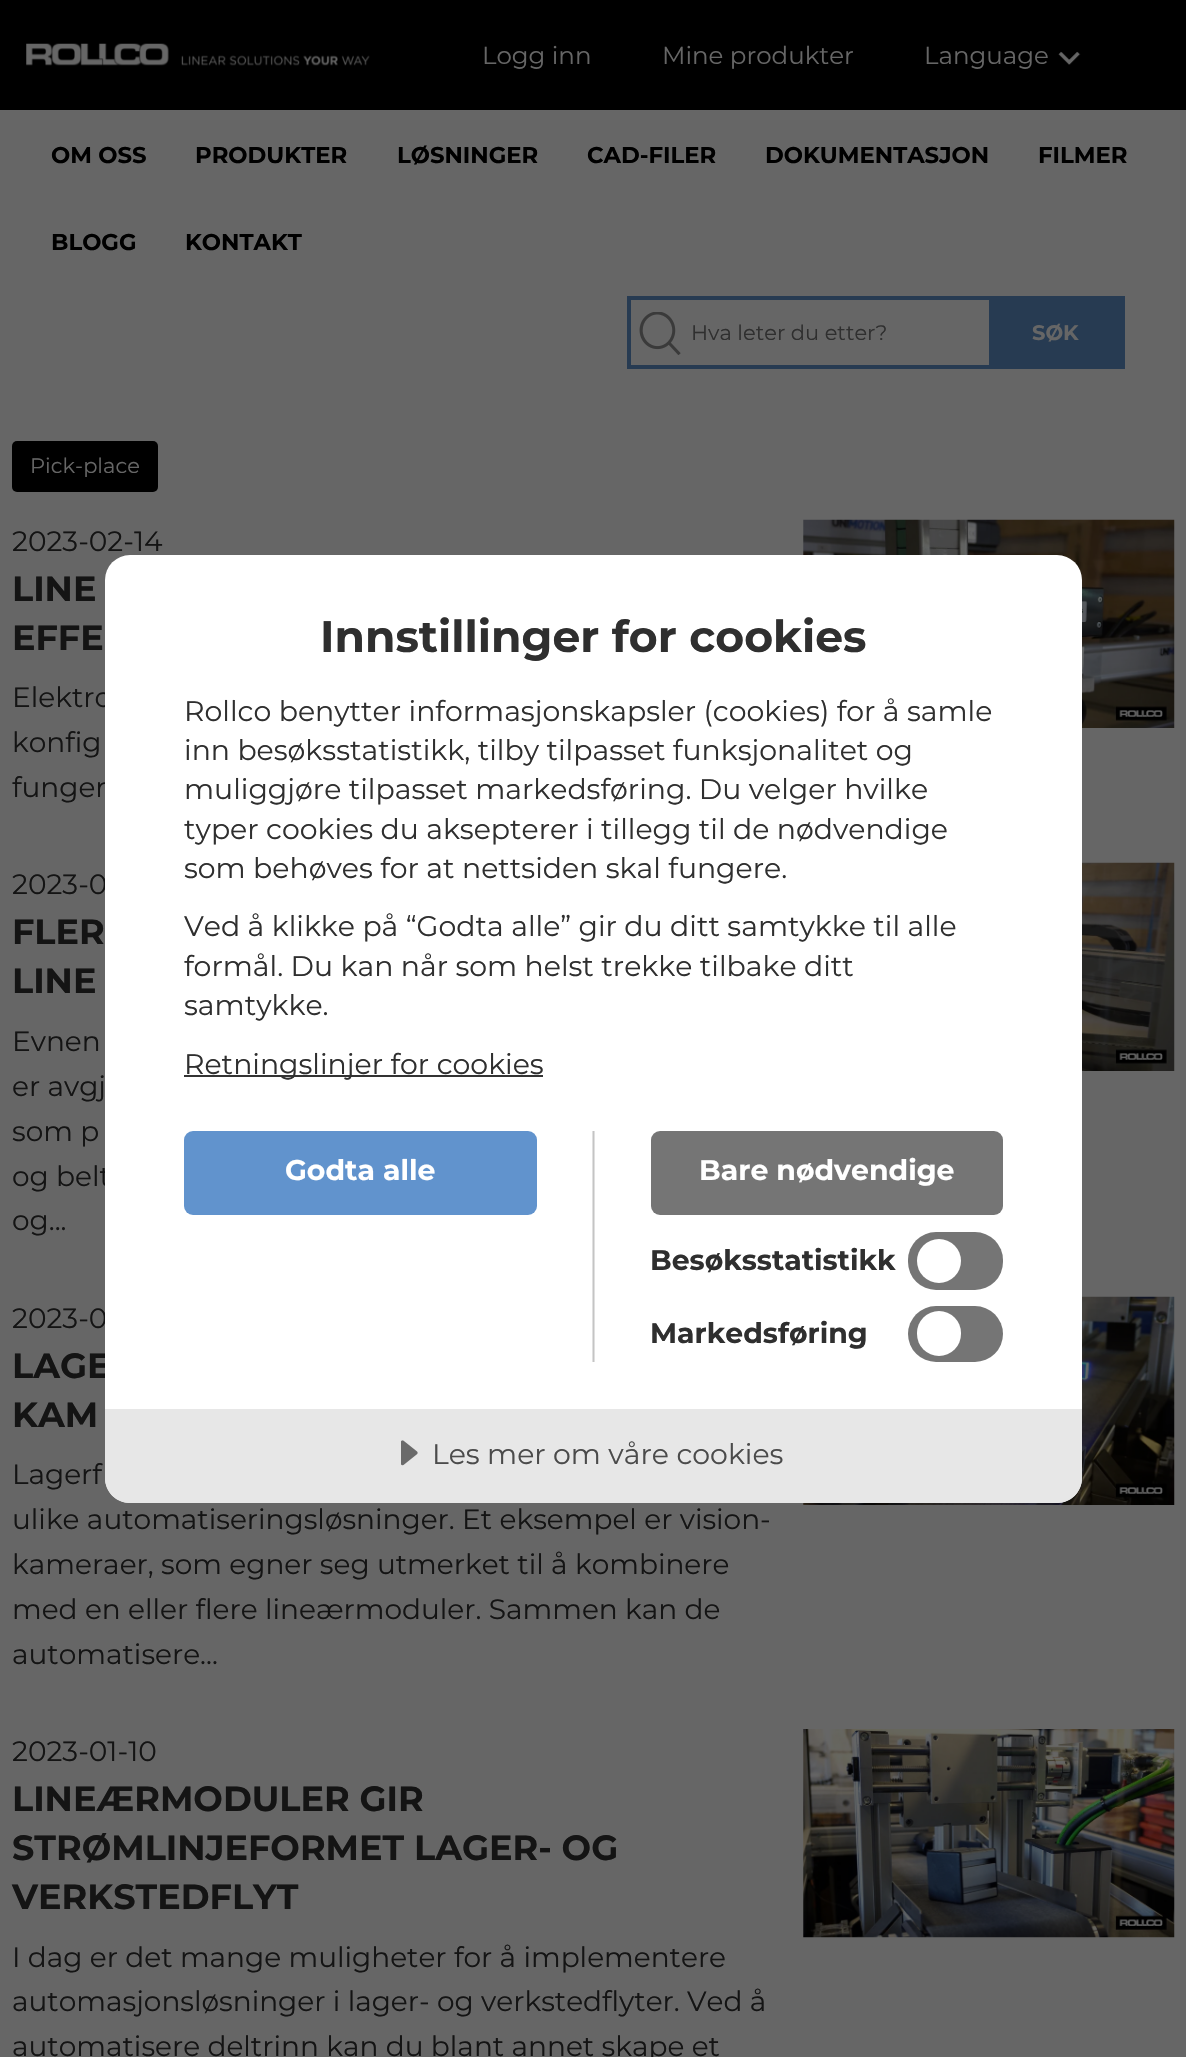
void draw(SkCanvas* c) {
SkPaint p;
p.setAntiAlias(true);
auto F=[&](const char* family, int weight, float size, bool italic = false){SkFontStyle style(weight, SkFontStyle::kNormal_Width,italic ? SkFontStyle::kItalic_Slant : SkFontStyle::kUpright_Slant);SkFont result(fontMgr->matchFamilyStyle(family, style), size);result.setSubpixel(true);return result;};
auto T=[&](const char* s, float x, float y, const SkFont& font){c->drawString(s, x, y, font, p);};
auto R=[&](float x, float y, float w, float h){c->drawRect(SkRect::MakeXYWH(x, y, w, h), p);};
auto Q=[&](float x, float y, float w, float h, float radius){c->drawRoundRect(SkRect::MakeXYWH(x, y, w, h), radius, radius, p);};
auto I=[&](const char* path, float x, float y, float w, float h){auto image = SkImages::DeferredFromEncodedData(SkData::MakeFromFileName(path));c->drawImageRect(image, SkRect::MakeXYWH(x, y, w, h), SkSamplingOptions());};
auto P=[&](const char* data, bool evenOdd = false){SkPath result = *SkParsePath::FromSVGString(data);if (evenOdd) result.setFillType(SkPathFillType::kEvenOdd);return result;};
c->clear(0xff666666);
p.setColor(0xff000000);
R(0,0,1186,110);
I("1.png",26,43,344,23);
auto f1 = F("Montserrat",400,24.5);
p.setColor(0xff666666);
T("Logg inn",482,64,f1);
T("Mine produkter",662,64,f1);
T("Language",924,64,f1);
I("2.png",1058,51,23,14);
auto f2 = F("Montserrat",700,22.75);
p.setColor(0xff000000);
T("OM OSS",51,163,f2);
T("PRODUKTER",195,163,f2);
T("LØSNINGER",397,163,f2);
T("CAD-FILER",587,163,f2);
T("DOKUMENTASJON",765,163,f2);
T("FILMER",1038,163,f2);
T("BLOGG",51,250,f2);
T("KONTAKT",185,250,f2);
p.setStroke(true);
p.setStrokeWidth(4);
p.setColor(0xff273b52);
c->drawRect(SkRect::MakeXYWH(629,298,494,69),p);
I("3.png",639,312,42,43);
auto f3 = F("Montserrat",400,21);
p.setStroke(false);
p.setColor(0xff2f2f2f);
T("Hva leter du etter?",691,340,f3);
p.setColor(0xff273b52);
R(989,300,132,65);
auto f4 = F("Montserrat",700,21);
p.setColor(0xff666666);
T("SØK",1032,340,f4);
p.setColor(0xff000000);
Q(12,441,146,51,5);
p.setColor(0xff666666);
T("Pick-place",30,473,f3);
auto f5 = F("Montserrat",400,28);
p.setColor(0xff141414);
T("2023-02-14",12,551,f5);
auto f6 = F("Montserrat",700,35);
T("LINE",12,601,f6);
T("EFFE",12,650,f6);
T("Elektro",12,707,f5);
T("konfig",12,752,f5);
T("funger",12,797,f5);
I("4.png",803,519,372,209);
T("2023-0",12,894,f5);
T("FLER",12,944,f6);
T("LINE",12,993,f6);
T("Evnen",12,1051,f5);
T("er avgj",12,1096,f5);
T("som p",12,1141,f5);
T("og belt",12,1186,f5);
T("og...",12,1230,f5);
I("5.png",1082,862,93,209);
T("2023-0",12,1328,f5);
T("LAGE",12,1378,f6);
T("KAM",12,1427,f6);
T("Lagerf",12,1484,f5);
T("ulike automatiseringsløsninger. Et eksempel er vision-",12,1529,f5);
T("kameraer, som egner seg utmerket til å kombinere",12,1574,f5);
T("med en eller flere lineærmoduler. Sammen kan de",12,1619,f5);
T("automatisere...",12,1664,f5);
I("6.png",803,1296,372,209);
T("2023-01-10",12,1761,f5);
T("LINEÆRMODULER GIR",12,1811,f6);
T("STRØMLINJEFORMET LAGER- OG",12,1860,f6);
T("VERKSTEDFLYT",12,1909,f6);
T("I dag er det mange muligheter for å implementere",12,1967,f5);
T("automasjonsløsninger i lager- og verkstedflyter. Ved å",12,2011,f5);
T("automatisere deltrinn kan du blant annet skape et",12,2056,f5);
I("7.png",803,1729,372,209);
p.setColor(0xffffffff);
Q(105,555,977,948,25);
auto f7 = F("Montserrat",700,44.1);
p.setColor(0xff2f2f2f);
T("Innstillinger for cookies",320,652,f7);
auto f8 = F("Montserrat",400,28.35);
T("Rollco benytter informasjonskapsler (cookies) for å samle",184,721,f8);
T("inn besøksstatistikk, tilby tilpasset funksjonalitet og",184,760,f8);
T("muliggjøre tilpasset markedsføring. Du velger hvilke",184,799,f8);
T("typer cookies du aksepterer i tillegg til de nødvendige",184,839,f8);
T("som behøves for at nettsiden skal fungere.",184,878,f8);
T("Ved å klikke på “Godta alle” gir du ditt samtykke til alle",184,936,f8);
T("formål. Du kan når som helst trekke tilbake ditt",184,976,f8);
T("samtykke.",184,1015,f8);
p.setColor(0xff333333);
R(184,1075,359,2);
p.setColor(0xff2f2f2f);
T("Retningslinjer for cookies",184,1074,f8);
p.setColor(0xffe0e0e0);
R(592,1131,2,231);
p.setColor(0xff6193cd);
Q(184,1131,353,84,9);
auto f9 = F("Montserrat",700,28.35);
p.setColor(0xffffffff);
T("Godta alle",285,1180,f9);
p.setColor(0x1f000000);
R(593,1131,2,231);
p.setColor(0xff757575);
Q(651,1131,352,84,9);
p.setColor(0xffffffff);
T("Bare nødvendige",699,1180,f9);
p.setColor(0xff2f2f2f);
T("Besøksstatistikk",650,1270,f9);
p.setColor(0xff757575);
Q(908,1232,95,58,28);
p.setColor(0xffffffff);
c->drawCircle(939,1261,22,p);
p.setColor(0xff2f2f2f);
T("Markedsføring",650,1343,f9);
p.setColor(0xff757575);
Q(908,1306,95,56,28);
p.setColor(0xffffffff);
Q(917,1311,44,45,22);
p.setColor(0xffe7e7e7);
c->drawPath(P("M105 1409h977v69c0 14-11 25-25 25h-927c-14 0-25-11-25-25z"),p);
I("8.png",401,1440,17,26);
p.setColor(0xff4b4b4b);
T("Les mer om våre cookies",432,1464,f8);
}
